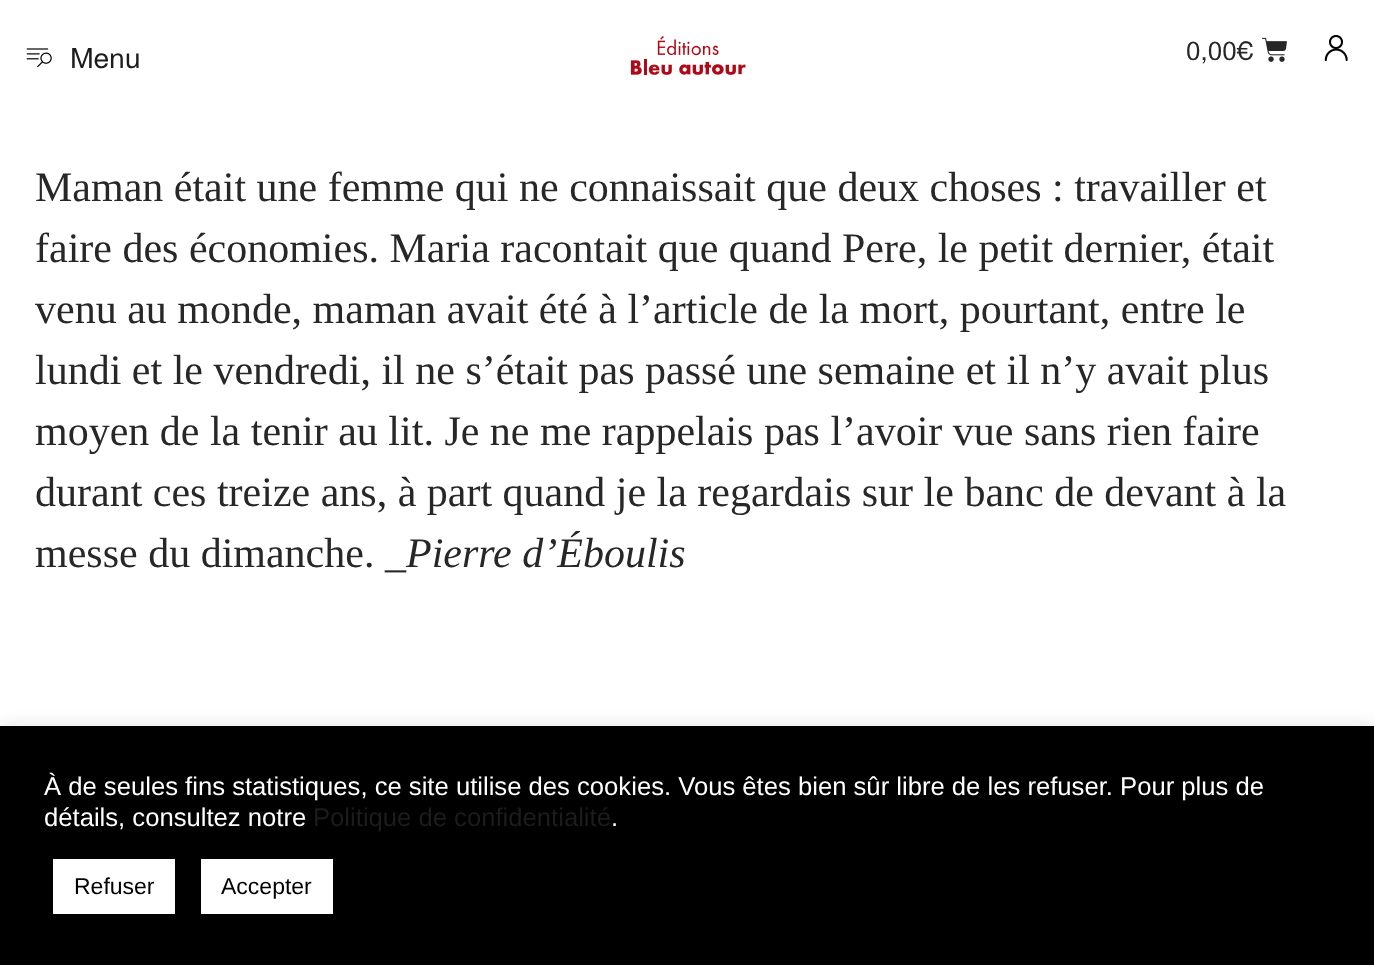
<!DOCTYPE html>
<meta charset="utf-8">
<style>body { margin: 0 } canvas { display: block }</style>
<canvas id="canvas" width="1374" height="965"></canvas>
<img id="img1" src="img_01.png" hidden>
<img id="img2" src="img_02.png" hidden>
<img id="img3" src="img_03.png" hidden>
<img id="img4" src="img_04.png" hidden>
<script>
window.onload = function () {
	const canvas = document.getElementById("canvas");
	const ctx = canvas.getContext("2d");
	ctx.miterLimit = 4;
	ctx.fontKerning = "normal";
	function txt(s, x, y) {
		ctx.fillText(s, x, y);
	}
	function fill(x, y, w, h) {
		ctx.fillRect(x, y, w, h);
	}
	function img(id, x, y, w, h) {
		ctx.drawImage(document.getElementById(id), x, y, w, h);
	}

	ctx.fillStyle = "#FFFFFF";
	fill(0, 0, 1374, 965);
	img("img1", 26, 48, 26, 20);
	img("img2", 630, 36, 116, 39);
	img("img3", 1262, 37, 25, 25);
	img("img4", 1324, 35, 24, 26);
	ctx.fillStyle = "rgba(172, 171, 171, 0.3)";
	ctx.filter = "blur(9px)";
	ctx.beginPath();
	ctx.rect(0, 725, 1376, 239);
	ctx.fill();
	ctx.filter = "none";
	ctx.fillStyle = "#000000";
	fill(0, 726, 1374, 239);
	ctx.fillStyle = "#FFFFFF";
	fill(53, 859, 122, 55);
	fill(201, 859, 132, 55);
	ctx.font = "28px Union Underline";
	ctx.fillStyle = "#1C1C1C";
	txt("Menu", 70, 68);
	ctx.font = "26px Union Underline";
	ctx.fillStyle = "#272727";
	txt("0,00€", 1186, 60);
	ctx.font = "42px Liberation Serif";
	txt("Maman était une femme qui ne connaissait que deux choses : travailler et", 35, 201);
	txt("faire des économies. Maria racontait que quand Pere, le petit dernier, était", 35, 262);
	txt("venu au monde, maman avait été à l’article de la mort, pourtant, entre le", 35, 323);
	txt("lundi et le vendredi, il ne s’était pas passé une semaine et il n’y avait plus", 35, 384);
	txt("moyen de la tenir au lit. Je ne me rappelais pas l’avoir vue sans rien faire", 35, 445);
	txt("durant ces treize ans, à part quand je la regardais sur le banc de devant à la", 35, 506);
	txt("messe du dimanche.", 35, 567);
	ctx.font = "italic 42px Liberation Serif";
	txt("_Pierre d’Éboulis", 385, 567);
	ctx.font = "25.65px Liberation Sans";
	ctx.fillStyle = "#FFFFFF";
	txt("À de seules fins statistiques, ce site utilise des cookies. Vous êtes bien sûr libre de les refuser. Pour plus de", 44, 795);
	txt("détails, consultez notre", 44, 826);
	ctx.fillStyle = "#1C1C1C";
	txt("Politique de confidentialité", 313, 826);
	ctx.fillStyle = "#FFFFFF";
	txt(".", 611, 826);
	ctx.font = "23px Liberation Sans";
	ctx.fillStyle = "#000000";
	txt("Refuser", 74, 894);
	txt("Accepter", 221, 894);
};
</script>
